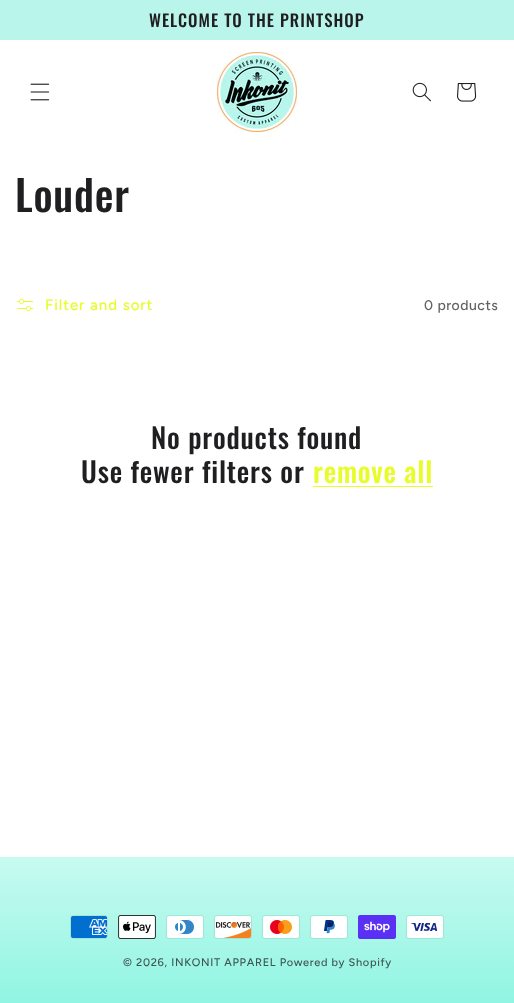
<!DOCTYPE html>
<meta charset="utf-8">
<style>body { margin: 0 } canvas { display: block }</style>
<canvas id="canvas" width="514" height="1003"></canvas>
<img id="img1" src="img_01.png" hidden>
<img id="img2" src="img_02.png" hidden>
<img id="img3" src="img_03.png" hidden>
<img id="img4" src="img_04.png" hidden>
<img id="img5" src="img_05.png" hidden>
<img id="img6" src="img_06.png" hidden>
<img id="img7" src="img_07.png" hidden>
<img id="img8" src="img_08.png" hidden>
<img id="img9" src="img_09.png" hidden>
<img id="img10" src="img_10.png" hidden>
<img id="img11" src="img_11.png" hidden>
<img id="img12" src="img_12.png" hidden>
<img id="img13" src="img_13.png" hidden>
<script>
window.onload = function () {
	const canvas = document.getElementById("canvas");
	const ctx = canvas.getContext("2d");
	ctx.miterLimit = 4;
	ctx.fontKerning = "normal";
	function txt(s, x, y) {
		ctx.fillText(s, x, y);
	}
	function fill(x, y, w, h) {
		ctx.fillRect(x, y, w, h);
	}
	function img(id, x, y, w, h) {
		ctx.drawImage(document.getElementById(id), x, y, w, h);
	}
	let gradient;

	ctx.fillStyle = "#FFFFFF";
	fill(0, 0, 514, 1003);
	gradient = ctx.createLinearGradient(275, -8, 239, 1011);
	gradient.addColorStop(0.13, "#B9F5EB");
	gradient.addColorStop(0.52, "#FFFFFF");
	gradient.addColorStop(0.88, "#FFFFFF");
	ctx.fillStyle = gradient;
	fill(0, 0, 514, 40);
	img("img1", 30, 83, 20, 18);
	img("img2", 217, 52, 80, 80);
	img("img3", 412, 82, 19, 20);
	img("img4", 457, 83, 20, 19);
	img("img5", 17, 299, 16, 12);
	ctx.fillStyle = "#E7FC28";
	fill(313, 486, 120, 1);
	gradient = ctx.createLinearGradient(257, 0, 257, 1003);
	gradient.addColorStop(0, "#FFFFFF");
	gradient.addColorStop(0.71, "#FFFFFF");
	gradient.addColorStop(1, "#90F5E2");
	ctx.fillStyle = gradient;
	fill(0, 857, 514, 146);
	img("img6", 70, 915, 38, 24);
	img("img7", 118, 915, 38, 24);
	img("img8", 166, 915, 38, 24);
	img("img9", 214, 915, 38, 24);
	img("img10", 262, 915, 38, 24);
	img("img11", 310, 915, 38, 24);
	img("img12", 358, 915, 38, 24);
	img("img13", 406, 915, 38, 24);
	ctx.letterSpacing = "1px";
	ctx.font = "500 16.75px Oswald";
	ctx.fillStyle = "#1F1F21";
	txt("WELCOME TO THE PRINTSHOP", 149, 27);
	ctx.letterSpacing = "0.8px";
	ctx.font = "500 42px Oswald";
	txt("Louder", 15, 212);
	ctx.letterSpacing = "1px";
	ctx.font = "500 15px Figtree";
	ctx.fillStyle = "#E7FC28";
	txt("Filter and sort", 45, 310);
	ctx.letterSpacing = "0.5px";
	ctx.font = "500 14px Figtree";
	ctx.fillStyle = "#626264";
	txt("0 products", 424, 310);
	ctx.letterSpacing = "0.8px";
	ctx.font = "500 28px Oswald";
	ctx.fillStyle = "#1F1F21";
	txt("No products found", 151, 449);
	txt("Use fewer filters or", 81, 483);
	ctx.fillStyle = "#E7FC28";
	txt("remove all", 313, 483);
	ctx.letterSpacing = "0.7px";
	ctx.font = "500 11px Figtree";
	ctx.fillStyle = "#3F5552";
	txt("© 2026, INKONIT APPAREL Powered by Shopify", 123, 966);
};
</script>
